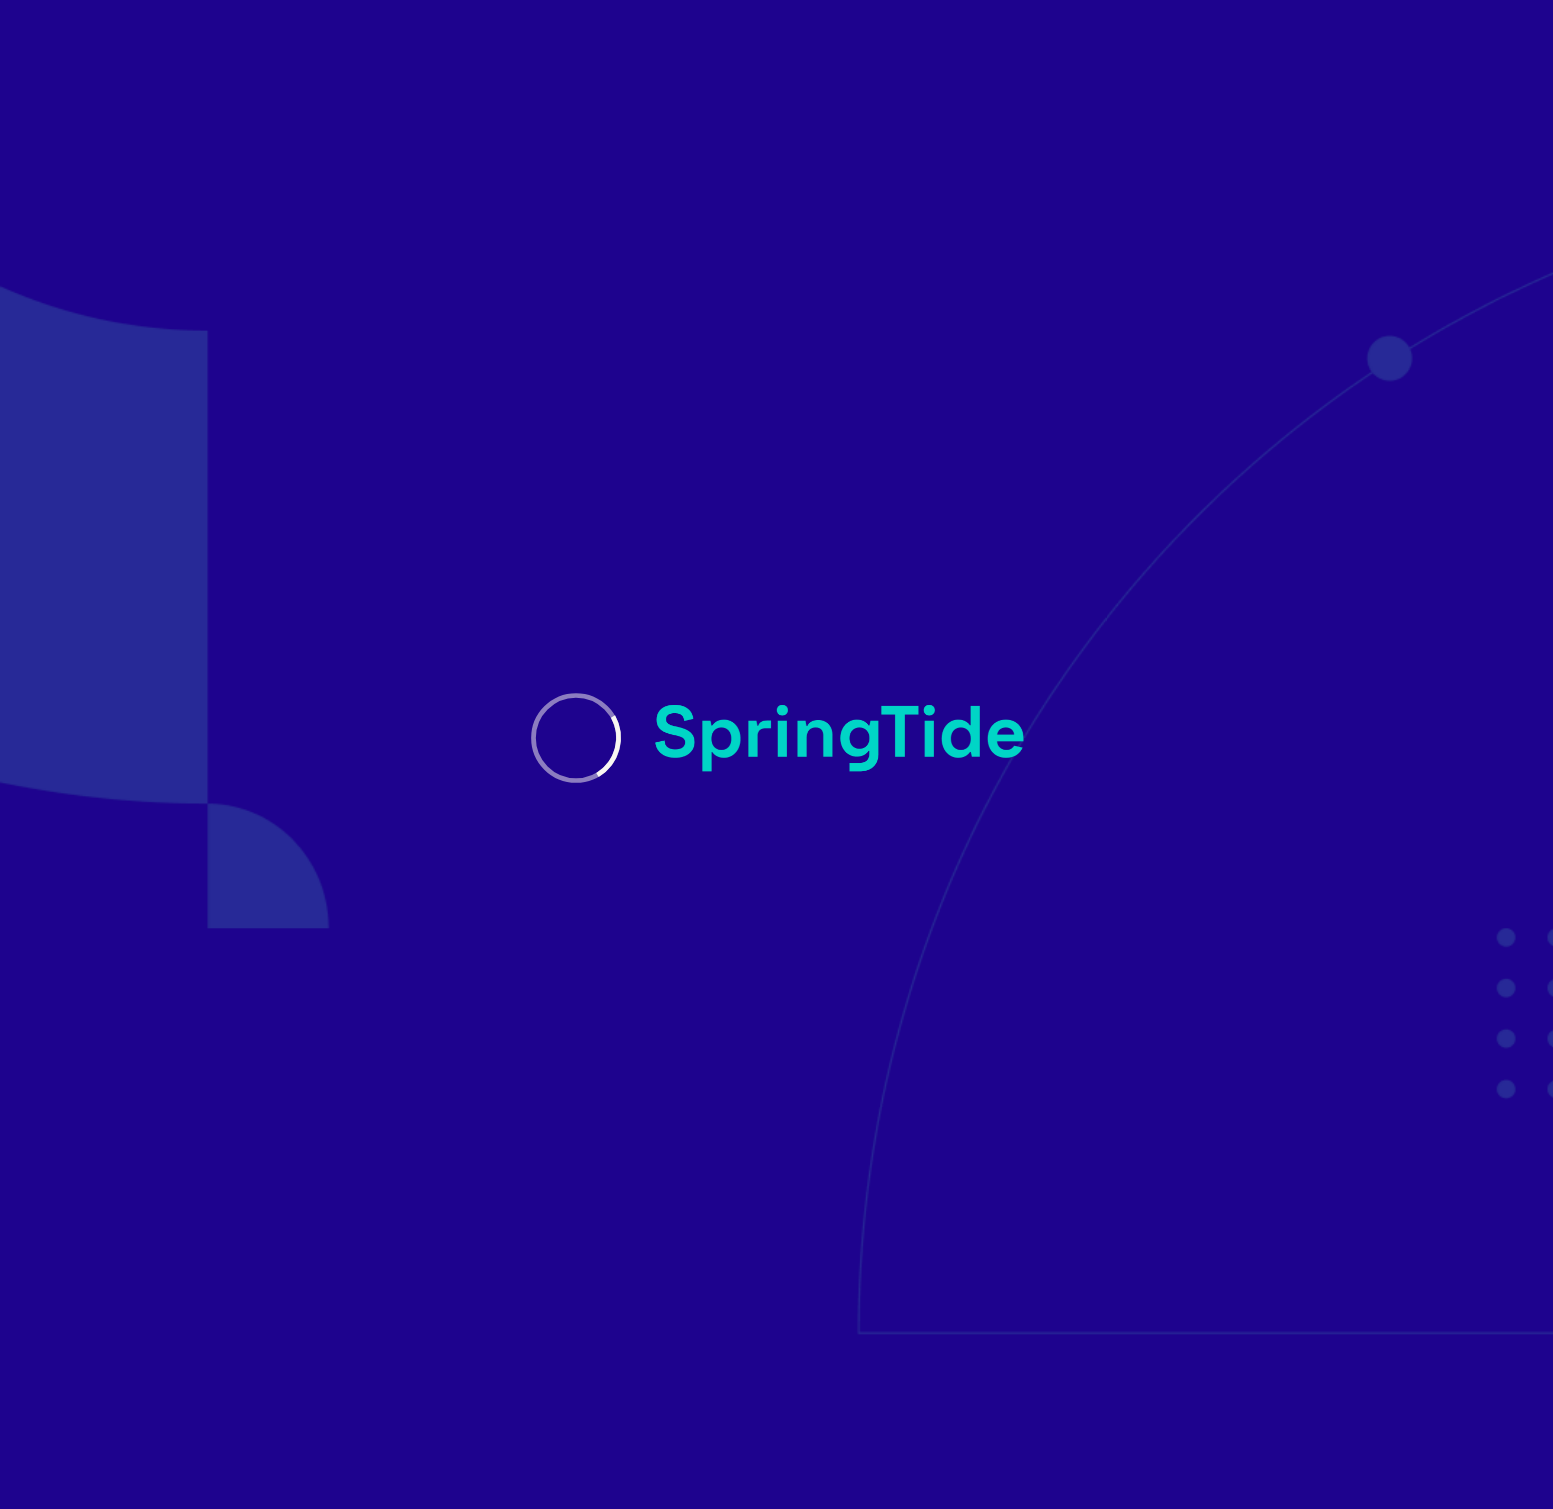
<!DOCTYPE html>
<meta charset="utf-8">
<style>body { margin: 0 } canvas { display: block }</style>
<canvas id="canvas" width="1553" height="1509"></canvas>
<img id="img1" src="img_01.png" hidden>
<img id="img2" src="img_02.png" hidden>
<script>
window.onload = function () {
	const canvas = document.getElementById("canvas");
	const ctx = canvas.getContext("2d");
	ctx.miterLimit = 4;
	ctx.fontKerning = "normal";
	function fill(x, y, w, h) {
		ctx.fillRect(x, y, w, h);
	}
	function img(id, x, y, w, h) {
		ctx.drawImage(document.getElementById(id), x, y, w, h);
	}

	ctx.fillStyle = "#1E038E";
	fill(0, 0, 1553, 1509);
	img("img1", 0, 272, 1553, 1063);
	ctx.beginPath();
	ctx.arc(576, 738, 42.5, 0, Math.PI * 2);
	ctx.strokeStyle = "#8C7DC0";
	ctx.lineWidth = 4.7;
	ctx.stroke();
	ctx.beginPath();
	ctx.moveTo(597.5, 775);
	ctx.bezierCurveTo(617.5, 763, 624.5, 737, 613, 716.5);
	ctx.strokeStyle = "#F9F7F2";
	ctx.stroke();
	img("img2", 655, 705, 369, 67);
};
</script>
